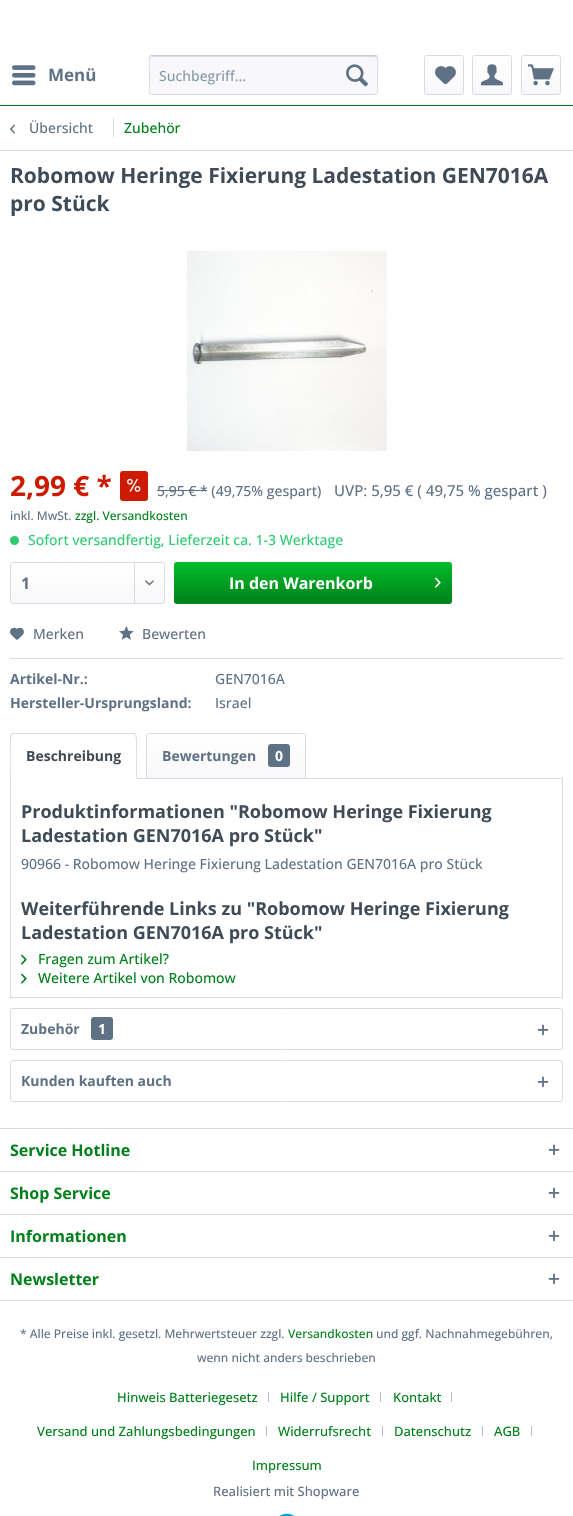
<!DOCTYPE html>
<meta charset="utf-8">
<style>body { margin: 0 } canvas { display: block }</style>
<canvas id="canvas" width="573" height="1516"></canvas>
<img id="img1" src="img_01.png" hidden>
<img id="img2" src="img_02.png" hidden>
<img id="img3" src="img_03.png" hidden>
<img id="img4" src="img_04.png" hidden>
<img id="img5" src="img_05.png" hidden>
<img id="img6" src="img_06.png" hidden>
<img id="img7" src="img_07.png" hidden>
<img id="img8" src="img_08.png" hidden>
<img id="img9" src="img_09.png" hidden>
<img id="img10" src="img_10.png" hidden>
<img id="img11" src="img_11.png" hidden>
<img id="img12" src="img_12.png" hidden>
<img id="img13" src="img_13.png" hidden>
<img id="img14" src="img_14.png" hidden>
<img id="img15" src="img_15.png" hidden>
<script>
window.onload = function () {
	const canvas = document.getElementById("canvas");
	const ctx = canvas.getContext("2d");
	ctx.miterLimit = 4;
	ctx.fontKerning = "normal";
	function txt(s, x, y) {
		ctx.fillText(s, x, y);
	}
	function fill(x, y, w, h) {
		ctx.fillRect(x, y, w, h);
	}
	function round(x, y, w, h, r) {
		ctx.beginPath();
		ctx.roundRect(x, y, w, h, r);
		ctx.fill();
	}
	function img(id, x, y, w, h) {
		ctx.drawImage(document.getElementById(id), x, y, w, h);
	}
	let gradient;

	ctx.fillStyle = "#FFFFFF";
	fill(0, 0, 573, 1516);
	ctx.fillStyle = "#00801B";
	fill(0, 105, 573, 1);
	img("img1", 12, 65, 24, 21);
	ctx.fillStyle = "#F8F8FA";
	round(149, 55, 229, 40, 3);
	ctx.fillStyle = "#DADAE5";
	ctx.beginPath();
	ctx.moveTo(152, 57);
	ctx.lineTo(375, 57);
	ctx.bezierCurveTo(376, 57, 377, 58, 377, 59);
	ctx.bezierCurveTo(377, 58, 377, 56, 375, 56);
	ctx.lineTo(152, 56);
	ctx.lineTo(151, 57);
	ctx.lineTo(150, 59);
	ctx.bezierCurveTo(150, 58, 151, 57, 152, 57);
	ctx.closePath();
	ctx.fill();
	ctx.beginPath();
	ctx.moveTo(150, 56);
	ctx.lineTo(152, 55.5);
	ctx.lineTo(375, 55.5);
	ctx.lineTo(377, 56);
	ctx.strokeStyle = "#CBCBDB";
	ctx.stroke();
	ctx.beginPath();
	ctx.moveTo(377, 56);
	ctx.bezierCurveTo(378.5, 58, 377.5, 72, 377.5, 75);
	ctx.lineTo(377.5, 86.5);
	ctx.bezierCurveTo(377.5, 88, 379, 94.5, 375, 94.5);
	ctx.lineTo(152, 94.5);
	ctx.bezierCurveTo(148, 94.5, 149.5, 88, 149.5, 86.5);
	ctx.lineTo(149.5, 75);
	ctx.bezierCurveTo(149.5, 72, 148.5, 58, 150, 56);
	ctx.strokeStyle = "#DADAE5";
	ctx.stroke();
	img("img2", 346, 64, 22, 23);
	gradient = ctx.createLinearGradient(444, 56, 444, 94);
	gradient.addColorStop(0, "#FFFFFF");
	gradient.addColorStop(1, "#F8F8FA");
	ctx.fillStyle = gradient;
	round(425, 56, 38, 38, 2);
	ctx.beginPath();
	ctx.roundRect(424.5, 55.5, 39, 39, 2.5);
	ctx.stroke();
	img("img3", 435, 66, 21, 19);
	gradient = ctx.createLinearGradient(492, 56, 492, 94);
	gradient.addColorStop(0, "#FFFFFF");
	gradient.addColorStop(1, "#F8F8FA");
	ctx.fillStyle = gradient;
	round(473, 56, 38, 38, 2);
	ctx.beginPath();
	ctx.roundRect(472.5, 55.5, 39, 39, 2.5);
	ctx.stroke();
	img("img4", 481, 64, 22, 22);
	gradient = ctx.createLinearGradient(541, 56, 541, 94);
	gradient.addColorStop(0, "#FFFFFF");
	gradient.addColorStop(1, "#F8F8FA");
	ctx.fillStyle = gradient;
	round(522, 56, 38, 38, 2);
	ctx.beginPath();
	ctx.roundRect(521.5, 55.5, 39, 39, 2.5);
	ctx.stroke();
	img("img5", 528, 64, 26, 22);
	ctx.fillStyle = "#DADAE5";
	fill(0, 150, 573, 1);
	img("img6", 10, 124, 5, 10);
	fill(113, 118, 1, 19);
	img("img7", 186, 251, 201, 200);
	ctx.fillStyle = "#CC1B00";
	round(120, 471, 28, 30, 3);
	img("img8", 127, 478, 14, 14);
	ctx.fillStyle = "#5F7285";
	fill(157, 490, 50, 1);
	ctx.fillStyle = "#2ECC71";
	ctx.beginPath();
	ctx.arc(14.5, 540.5, 4.5, 0, Math.PI * 2);
	ctx.fill();
	gradient = ctx.createLinearGradient(88, 563, 88, 603);
	gradient.addColorStop(0, "#FFFFFF");
	gradient.addColorStop(1, "#F8F8FA");
	ctx.fillStyle = gradient;
	round(11, 563, 153, 40, 2);
	ctx.beginPath();
	ctx.roundRect(10.5, 562.5, 154, 41, 2.5);
	ctx.stroke();
	ctx.fillStyle = "#DADAE5";
	fill(134, 563, 1, 40);
	img("img9", 145, 580, 9, 6);
	gradient = ctx.createLinearGradient(313, 562, 313, 604);
	gradient.addColorStop(0, "#00BD28");
	gradient.addColorStop(1, "#00801B");
	ctx.fillStyle = gradient;
	round(174, 562, 278, 42, 3);
	img("img10", 435, 577, 6, 11);
	ctx.fillStyle = "#DADAE5";
	fill(10, 658, 553, 1);
	img("img11", 10, 627, 14, 13);
	img("img12", 119, 626, 15, 14);
	ctx.strokeRect(10.5, 778.5, 552, 219);
	ctx.fillStyle = "#FFFFFF";
	ctx.beginPath();
	ctx.roundRect(10, 733, 127, 46, [3, 3, 0, 0]);
	ctx.fill();
	ctx.fillStyle = "#DADAE5";
	ctx.beginPath();
	ctx.moveTo(13, 733);
	ctx.lineTo(11, 734);
	ctx.lineTo(12, 735);
	ctx.lineTo(13, 734);
	ctx.lineTo(134, 734);
	ctx.lineTo(135, 735);
	ctx.lineTo(136, 734);
	ctx.lineTo(134, 733);
	ctx.closePath();
	ctx.fill();
	ctx.beginPath();
	ctx.moveTo(137, 779);
	ctx.bezierCurveTo(137, 774, 138, 736, 136, 734);
	ctx.lineTo(135, 735);
	ctx.bezierCurveTo(137, 736, 136, 773, 136, 778);
	ctx.closePath();
	ctx.fill();
	ctx.fillStyle = "#FFFFFF";
	ctx.beginPath();
	ctx.moveTo(137, 779);
	ctx.lineTo(136, 778);
	ctx.lineTo(11, 778);
	ctx.lineTo(10, 779);
	ctx.closePath();
	ctx.fill();
	ctx.fillStyle = "#DADAE5";
	ctx.beginPath();
	ctx.moveTo(10, 779);
	ctx.lineTo(11, 778);
	ctx.bezierCurveTo(11, 773, 10, 736, 12, 735);
	ctx.lineTo(11, 734);
	ctx.lineTo(10, 736);
	ctx.closePath();
	ctx.fill();
	gradient = ctx.createLinearGradient(226, 734, 226, 778);
	gradient.addColorStop(0, "#FFFFFF");
	gradient.addColorStop(1, "#F8F8FA");
	ctx.fillStyle = gradient;
	ctx.beginPath();
	ctx.roundRect(147, 734, 158, 44, [2, 2, 0, 0]);
	ctx.fill();
	ctx.beginPath();
	ctx.roundRect(146.5, 733.5, 159, 45, [2.5, 2.5, 0, 0]);
	ctx.stroke();
	ctx.fillStyle = "#5F7285";
	round(268, 744, 22, 23, 3);
	img("img13", 21, 954, 6, 11);
	img("img13", 21, 973, 6, 11);
	ctx.beginPath();
	ctx.roundRect(10.5, 1008.5, 552, 41, 2.5);
	ctx.stroke();
	round(91, 1017, 22, 23, 3);
	img("img14", 537, 1024, 12, 12);
	ctx.beginPath();
	ctx.roundRect(10.5, 1060.5, 552, 41, 2.5);
	ctx.stroke();
	img("img14", 537, 1076, 12, 12);
	ctx.fillStyle = "#DADAE5";
	fill(0, 1128, 573, 1);
	img("img14", 548, 1144, 12, 12);
	fill(0, 1171, 573, 1);
	img("img14", 548, 1187, 12, 12);
	fill(0, 1214, 573, 1);
	img("img14", 548, 1230, 12, 12);
	fill(0, 1257, 573, 1);
	fill(0, 1300, 573, 1);
	img("img14", 548, 1273, 12, 12);
	ctx.fillStyle = "#BCBCD0";
	fill(268, 1392, 1, 10);
	fill(380, 1392, 1, 10);
	fill(451, 1392, 1, 10);
	fill(266, 1426, 1, 10);
	fill(382, 1426, 1, 10);
	fill(482, 1426, 1, 10);
	fill(531, 1426, 1, 10);
	img("img15", 279, 1513, 16, 3);
	ctx.font = "bold 17px Open Sans";
	ctx.fillStyle = "#5F7285";
	txt("Menü", 48, 81);
	ctx.font = "500 14px Open Sans";
	ctx.fillStyle = "#8798A9";
	txt("Suchbegriff...", 159, 81);
	ctx.fillStyle = "#5F7285";
	txt("Übersicht", 29, 133);
	ctx.fillStyle = "#00801B";
	txt("Zubehör", 124, 133);
	ctx.font = "bold 21px Open Sans";
	ctx.fillStyle = "#3F4C58";
	txt("Robomow Heringe Fixierung Ladestation GEN7016A", 10, 183);
	txt("pro Stück", 10, 211);
	ctx.font = "bold 28px Open Sans";
	ctx.fillStyle = "#CC1B00";
	txt("2,99 € *", 10, 496);
	ctx.font = "500 14px Open Sans";
	ctx.fillStyle = "#5F7285";
	txt("5,95 € * (49,75% gespart)", 157, 496);
	ctx.font = "500 15px Open Sans";
	txt("UVP: 5,95 € ( 49,75 % gespart )", 334, 496);
	ctx.font = "500 12px Open Sans";
	txt("inkl. MwSt.", 10, 520);
	ctx.fillStyle = "#00801B";
	txt("zzgl. Versandkosten", 75, 520);
	ctx.font = "500 14px Open Sans";
	ctx.fillStyle = "#2ECC71";
	txt("Sofort versandfertig, Lieferzeit ca. 1-3 Werktage", 28, 545);
	ctx.font = "bold 16px Open Sans";
	ctx.fillStyle = "#5F7285";
	txt("1", 21, 589);
	ctx.fillStyle = "#FFFFFF";
	txt("In den Warenkorb", 229, 589);
	ctx.font = "500 14px Open Sans";
	ctx.fillStyle = "#5F7285";
	txt("Merken", 33, 639);
	txt("Bewerten", 142, 639);
	ctx.font = "bold 14px Open Sans";
	txt("Artikel-Nr.:", 10, 684);
	ctx.font = "500 14px Open Sans";
	txt("GEN7016A", 215, 684);
	ctx.font = "bold 14px Open Sans";
	txt("Hersteller-Ursprungsland:", 10, 708);
	ctx.font = "500 14px Open Sans";
	txt("Israel", 215, 708);
	ctx.font = "bold 14px Open Sans";
	ctx.fillStyle = "#3F4C58";
	txt("Beschreibung", 26, 761);
	ctx.fillStyle = "#5F7285";
	txt("Bewertungen", 162, 761);
	ctx.fillStyle = "#FFFFFF";
	txt("0", 275, 761);
	ctx.font = "bold 18px Open Sans";
	ctx.fillStyle = "#3F4C58";
	txt("Produktinformationen \"Robomow Heringe Fixierung", 21, 818);
	txt("Ladestation GEN7016A pro Stück\"", 21, 842);
	ctx.font = "500 14px Open Sans";
	ctx.fillStyle = "#5F7285";
	txt("90966 - Robomow Heringe Fixierung Ladestation GEN7016A pro Stück", 21, 869);
	ctx.font = "bold 18px Open Sans";
	ctx.fillStyle = "#3F4C58";
	txt("Weiterführende Links zu \"Robomow Heringe Fixierung", 21, 915);
	txt("Ladestation GEN7016A pro Stück\"", 21, 939);
	ctx.font = "500 14px Open Sans";
	ctx.fillStyle = "#00801B";
	txt("Fragen zum Artikel?", 38, 964);
	txt("Weitere Artikel von Robomow", 38, 983);
	ctx.font = "bold 14px Open Sans";
	ctx.fillStyle = "#5F7285";
	txt("Zubehör", 21, 1034);
	ctx.fillStyle = "#FFFFFF";
	txt("1", 98, 1034);
	ctx.fillStyle = "#5F7285";
	txt("Kunden kauften auch", 21, 1086);
	ctx.font = "bold 16px Open Sans";
	ctx.fillStyle = "#00801B";
	txt("Service Hotline", 10, 1156);
	txt("Shop Service", 10, 1199);
	txt("Informationen", 10, 1242);
	txt("Newsletter", 10, 1285);
	ctx.font = "500 12px Open Sans";
	ctx.fillStyle = "#5F7285";
	txt("* Alle Preise inkl. gesetzl. Mehrwertsteuer zzgl.", 20, 1338);
	ctx.fillStyle = "#00801B";
	txt("Versandkosten", 288, 1338);
	ctx.fillStyle = "#5F7285";
	txt("und ggf. Nachnahmegebühren,", 376, 1338);
	txt("wenn nicht anders beschrieben", 197, 1362);
	ctx.font = "500 13px Open Sans";
	ctx.fillStyle = "#00801B";
	txt("Hinweis Batteriegesetz", 117, 1402);
	txt("Hilfe / Support", 280, 1402);
	txt("Kontakt", 393, 1402);
	txt("Versand und Zahlungsbedingungen", 37, 1436);
	txt("Widerrufsrecht", 278, 1436);
	txt("Datenschutz", 394, 1436);
	txt("AGB", 494, 1436);
	txt("Impressum", 252, 1470);
	ctx.fillStyle = "#5F7285";
	txt("Realisiert mit Shopware", 213, 1496);
};
</script>
